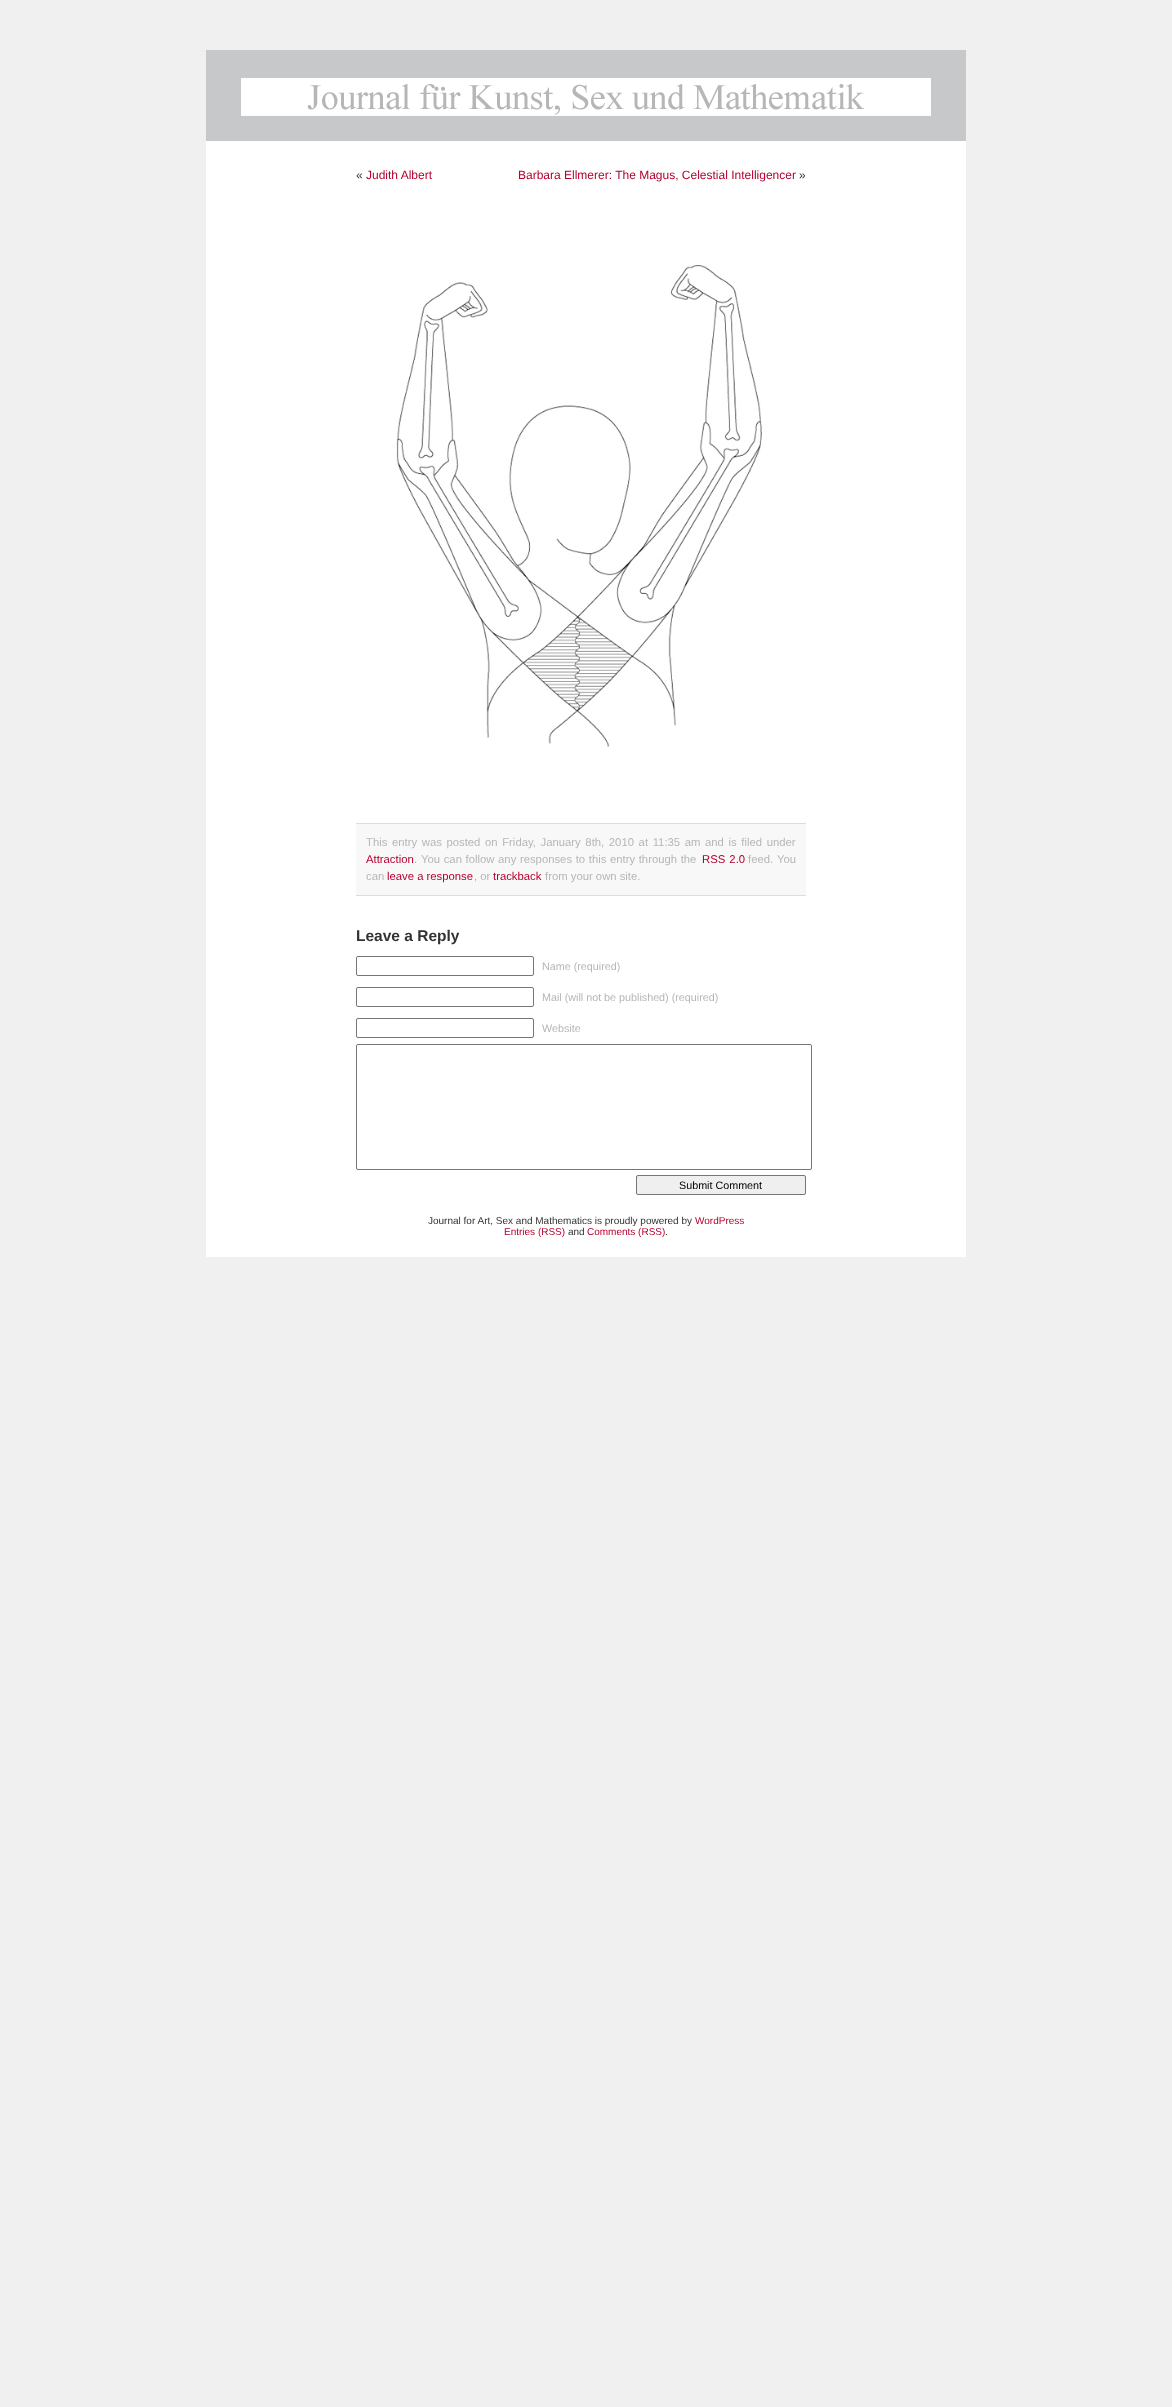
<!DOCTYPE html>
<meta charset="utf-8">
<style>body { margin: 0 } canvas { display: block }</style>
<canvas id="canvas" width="1172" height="2407"></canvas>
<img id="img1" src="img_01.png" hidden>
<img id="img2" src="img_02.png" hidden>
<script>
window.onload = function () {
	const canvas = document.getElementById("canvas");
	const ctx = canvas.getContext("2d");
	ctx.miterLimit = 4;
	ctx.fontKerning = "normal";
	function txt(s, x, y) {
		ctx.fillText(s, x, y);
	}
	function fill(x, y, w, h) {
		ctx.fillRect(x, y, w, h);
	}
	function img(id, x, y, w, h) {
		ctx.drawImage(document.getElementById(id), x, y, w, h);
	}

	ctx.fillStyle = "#F0F0F0";
	fill(0, 0, 1172, 2407);
	ctx.fillStyle = "#FFFFFF";
	fill(206, 141, 760, 1116);
	ctx.fillStyle = "#C7C8CA";
	fill(206, 50, 760, 91);
	img("img1", 241, 78, 690, 38);
	img("img2", 396, 265, 366, 482);
	ctx.fillStyle = "#F8F8F8";
	fill(356, 824, 450, 71);
	ctx.fillStyle = "#DDDDDD";
	fill(356, 823, 450, 1);
	fill(356, 895, 450, 1);
	ctx.beginPath();
	ctx.roundRect(356.5, 956.5, 177, 19, 1.5);
	ctx.strokeStyle = "#767676";
	ctx.stroke();
	ctx.beginPath();
	ctx.roundRect(356.5, 987.5, 177, 19, 1.5);
	ctx.stroke();
	ctx.beginPath();
	ctx.roundRect(356.5, 1018.5, 177, 19, 1.5);
	ctx.stroke();
	ctx.beginPath();
	ctx.roundRect(356.5, 1044.5, 455, 125, 1.5);
	ctx.stroke();
	ctx.fillStyle = "#EFEFEF";
	ctx.beginPath();
	ctx.roundRect(636.5, 1175.5, 169, 19, 1.5);
	ctx.fill();
	ctx.stroke();
	ctx.font = "12px Liberation Sans";
	ctx.fillStyle = "#333333";
	txt("«", 356, 179);
	ctx.fillStyle = "#B4012D";
	txt("Judith Albert", 366, 179);
	txt("Barbara Ellmerer: The Magus, Celestial Intelligencer", 518, 179);
	ctx.fillStyle = "#333333";
	txt("»", 799, 179);
	ctx.wordSpacing = "1.5px";
	ctx.font = "11.3px Liberation Sans";
	ctx.fillStyle = "#B6B6B6";
	txt("This entry was posted", 366, 846);
	txt("on Friday, January 8th, 2010 at 11:35 am", 485, 846);
	txt("and is filed under", 705, 846);
	ctx.wordSpacing = "0px";
	ctx.fillStyle = "#B4012D";
	txt("Attraction", 366, 863);
	ctx.fillStyle = "#B6B6B6";
	txt(".", 414, 863);
	ctx.wordSpacing = "0.5px";
	txt("You can follow any responses to this entry through the", 421, 863);
	ctx.wordSpacing = "1px";
	ctx.fillStyle = "#B4012D";
	txt("RSS 2.0", 702, 863);
	ctx.wordSpacing = "0px";
	ctx.fillStyle = "#B6B6B6";
	txt("feed.", 748, 863);
	txt("You", 777, 863);
	txt("can", 366, 880);
	ctx.fillStyle = "#B4012D";
	txt("leave a response", 387, 880);
	ctx.fillStyle = "#B6B6B6";
	txt(", or", 474, 880);
	ctx.fillStyle = "#B4012D";
	txt("trackback", 493, 880);
	ctx.fillStyle = "#B6B6B6";
	txt("from your own site.", 545, 880);
	ctx.font = "bold 15.5px Liberation Sans";
	ctx.fillStyle = "#333333";
	txt("Leave a Reply", 356, 941);
	ctx.font = "10.75px Liberation Sans";
	ctx.fillStyle = "#B6B6B6";
	txt("Name (required)", 542, 970);
	txt("Mail (will not be published) (required)", 542, 1001);
	txt("Website", 542, 1032);
	ctx.fillStyle = "#000000";
	txt("Submit Comment", 679, 1189);
	ctx.font = "10px Liberation Sans";
	ctx.fillStyle = "#333333";
	txt("Journal for Art, Sex and Mathematics is proudly powered by", 428, 1224);
	ctx.fillStyle = "#B4012D";
	txt("WordPress", 695, 1224);
	txt("Entries (RSS)", 504, 1235);
	ctx.fillStyle = "#333333";
	txt("and", 568, 1235);
	ctx.fillStyle = "#B4012D";
	txt("Comments (RSS)", 587, 1235);
	ctx.fillStyle = "#333333";
	txt(".", 665, 1235);
};
</script>
